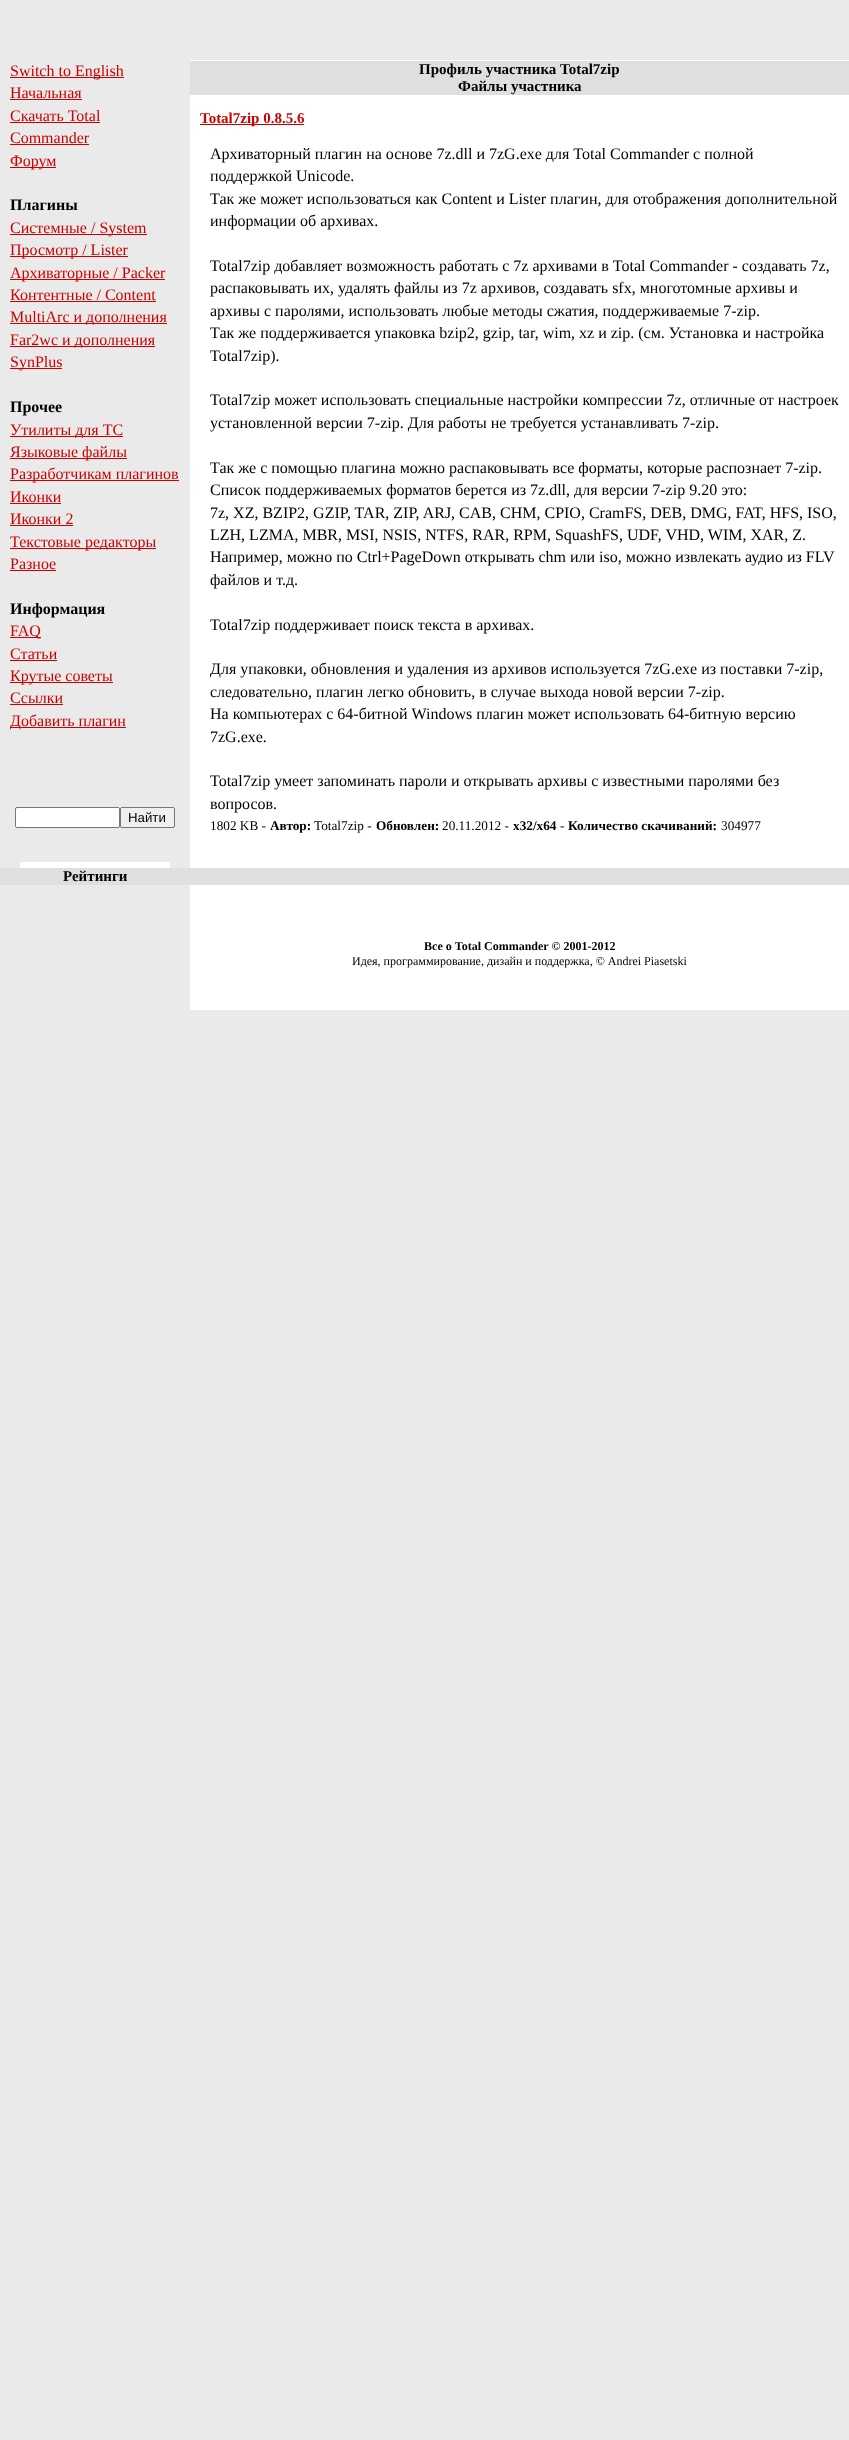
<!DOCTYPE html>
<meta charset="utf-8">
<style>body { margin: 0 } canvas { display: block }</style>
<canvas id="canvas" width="849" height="2440"></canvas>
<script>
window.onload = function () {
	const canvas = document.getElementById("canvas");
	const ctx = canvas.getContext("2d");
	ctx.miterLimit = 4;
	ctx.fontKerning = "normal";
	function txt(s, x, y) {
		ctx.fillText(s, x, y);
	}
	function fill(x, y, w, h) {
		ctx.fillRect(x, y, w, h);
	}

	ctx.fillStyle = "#EAEAEA";
	fill(0, 0, 849, 2440);
	ctx.fillStyle = "#CC0000";
	fill(10, 77, 114, 1);
	fill(10, 99, 72, 1);
	fill(10, 122, 90, 1);
	fill(10, 144, 79, 1);
	fill(10, 167, 46, 1);
	fill(10, 234, 137, 1);
	fill(10, 256, 118, 1);
	fill(10, 279, 155, 1);
	fill(10, 301, 146, 1);
	fill(10, 323, 157, 1);
	fill(10, 346, 145, 1);
	fill(10, 368, 52, 1);
	fill(10, 436, 113, 1);
	fill(10, 458, 117, 1);
	fill(10, 480, 169, 1);
	fill(10, 503, 51, 1);
	fill(10, 525, 63, 1);
	fill(10, 548, 146, 1);
	fill(10, 570, 46, 1);
	fill(10, 637, 31, 1);
	fill(10, 660, 47, 1);
	fill(10, 682, 103, 1);
	fill(10, 704, 53, 1);
	fill(10, 727, 116, 1);
	ctx.fillStyle = "#FFFFFF";
	ctx.beginPath();
	ctx.roundRect(15.5, 807.5, 104, 20, 1.5);
	ctx.fill();
	ctx.strokeStyle = "#767676";
	ctx.stroke();
	ctx.fillStyle = "#EFEFEF";
	ctx.beginPath();
	ctx.roundRect(120.5, 807.5, 54, 20, 1.5);
	ctx.fill();
	ctx.stroke();
	ctx.fillStyle = "#FFFFFF";
	fill(20, 862, 150, 6);
	fill(190, 60, 659, 808);
	ctx.fillStyle = "#DFDFDF";
	fill(190, 61, 659, 34);
	ctx.fillStyle = "#CC0000";
	fill(200, 124, 104, 1);
	ctx.fillStyle = "#DFDFDF";
	fill(0, 868, 849, 17);
	ctx.fillStyle = "#FFFFFF";
	fill(190, 885, 659, 125);
	ctx.font = "16px Liberation Serif";
	ctx.fillStyle = "#CC0000";
	txt("Switch to English", 10, 76);
	txt("Начальная", 10, 98);
	txt("Скачать Total", 10, 121);
	txt("Commander", 10, 143);
	txt("Форум", 10, 166);
	ctx.font = "bold 16px Liberation Serif";
	ctx.fillStyle = "#000000";
	txt("Плагины", 10, 210);
	ctx.font = "16px Liberation Serif";
	ctx.fillStyle = "#CC0000";
	txt("Системные / System", 10, 233);
	txt("Просмотр / Lister", 10, 255);
	txt("Архиваторные / Packer", 10, 278);
	txt("Контентные / Content", 10, 300);
	txt("MultiArc и дополнения", 10, 322);
	txt("Far2wc и дополнения", 10, 345);
	txt("SynPlus", 10, 367);
	ctx.font = "bold 16px Liberation Serif";
	ctx.fillStyle = "#000000";
	txt("Прочее", 10, 412);
	ctx.font = "16px Liberation Serif";
	ctx.fillStyle = "#CC0000";
	txt("Утилиты для TC", 10, 435);
	txt("Языковые файлы", 10, 457);
	txt("Разработчикам плагинов", 10, 479);
	txt("Иконки", 10, 502);
	txt("Иконки 2", 10, 524);
	txt("Текстовые редакторы", 10, 547);
	txt("Разное", 10, 569);
	ctx.font = "bold 16px Liberation Serif";
	ctx.fillStyle = "#000000";
	txt("Информация", 10, 614);
	ctx.font = "16px Liberation Serif";
	ctx.fillStyle = "#CC0000";
	txt("FAQ", 10, 636);
	txt("Статьи", 10, 659);
	txt("Крутые советы", 10, 681);
	txt("Ссылки", 10, 703);
	txt("Добавить плагин", 10, 726);
	ctx.font = "13.25px Liberation Sans";
	ctx.fillStyle = "#000000";
	txt("Найти", 128, 822);
	ctx.font = "bold 15px Liberation Serif";
	txt("Профиль участника Total7zip", 419, 74);
	txt("Файлы участника", 458, 91);
	ctx.fillStyle = "#CC0000";
	txt("Total7zip 0.8.5.6", 200, 123);
	ctx.font = "16px Liberation Serif";
	ctx.fillStyle = "#000000";
	txt("Архиваторный плагин на основе 7z.dll и 7zG.exe для Total Commander с полной", 210, 159);
	txt("поддержкой Unicode.", 210, 181);
	txt("Так же может использоваться как Content и Lister плагин, для отображения дополнительной", 210, 204);
	txt("информации об архивах.", 210, 226);
	txt("Total7zip добавляет возможность работать с 7z архивами в Total Commander - создавать 7z,", 210, 271);
	txt("распаковывать их, удалять файлы из 7z архивов, создавать sfx, многотомные архивы и", 210, 293);
	txt("архивы с паролями, использовать любые методы сжатия, поддерживаемые 7-zip.", 210, 316);
	txt("Так же поддерживается упаковка bzip2, gzip, tar, wim, xz и zip. (см. Установка и настройка", 210, 338);
	txt("Total7zip).", 210, 361);
	txt("Total7zip может использовать специальные настройки компрессии 7z, отличные от настроек", 210, 405);
	txt("установленной версии 7-zip. Для работы не требуется устанавливать 7-zip.", 210, 428);
	txt("Так же с помощью плагина можно распаковывать все форматы, которые распознает 7-zip.", 210, 473);
	txt("Список поддерживаемых форматов берется из 7z.dll, для версии 7-zip 9.20 это:", 210, 495);
	txt("7z, XZ, BZIP2, GZIP, TAR, ZIP, ARJ, CAB, CHM, CPIO, CramFS, DEB, DMG, FAT, HFS, ISO,", 210, 518);
	txt("LZH, LZMA, MBR, MSI, NSIS, NTFS, RAR, RPM, SquashFS, UDF, VHD, WIM, XAR, Z.", 210, 540);
	txt("Например, можно по Ctrl+PageDown открывать chm или iso, можно извлекать аудио из FLV", 210, 562);
	txt("файлов и т.д.", 210, 585);
	txt("Total7zip поддерживает поиск текста в архивах.", 210, 630);
	txt("Для упаковки, обновления и удаления из архивов используется 7zG.exe из поставки 7-zip,", 210, 674);
	txt("следовательно, плагин легко обновить, в случае выхода новой версии 7-zip.", 210, 697);
	txt("На компьютерах с 64-битной Windows плагин может использовать 64-битную версию", 210, 719);
	txt("7zG.exe.", 210, 742);
	txt("Total7zip умеет запоминать пароли и открывать архивы с известными паролями без", 210, 786);
	txt("вопросов.", 210, 809);
	ctx.font = "13.25px Liberation Serif";
	txt("1802 KB -", 210, 830);
	ctx.font = "bold 13.25px Liberation Serif";
	txt("Автор:", 270, 830);
	ctx.font = "13.25px Liberation Serif";
	txt("Total7zip -", 314, 830);
	ctx.font = "bold 13.25px Liberation Serif";
	txt("Обновлен:", 376, 830);
	ctx.font = "13.25px Liberation Serif";
	txt("20.11.2012 -", 442, 830);
	ctx.font = "bold 13.25px Liberation Serif";
	txt("x32/x64", 513, 830);
	ctx.font = "13.25px Liberation Serif";
	txt("-", 560, 830);
	ctx.font = "bold 13.25px Liberation Serif";
	txt("Количество скачиваний:", 568, 830);
	ctx.font = "13.25px Liberation Serif";
	txt("304977", 721, 830);
	ctx.font = "bold 15px Liberation Serif";
	txt("Рейтинги", 63, 881);
	ctx.font = "bold 12px Liberation Serif";
	txt("Все о Total Commander © 2001-2012", 424, 950);
	ctx.font = "12px Liberation Serif";
	txt("Идея, программирование, дизайн и поддержка, © Andrei Piasetski", 352, 965);
};
</script>
